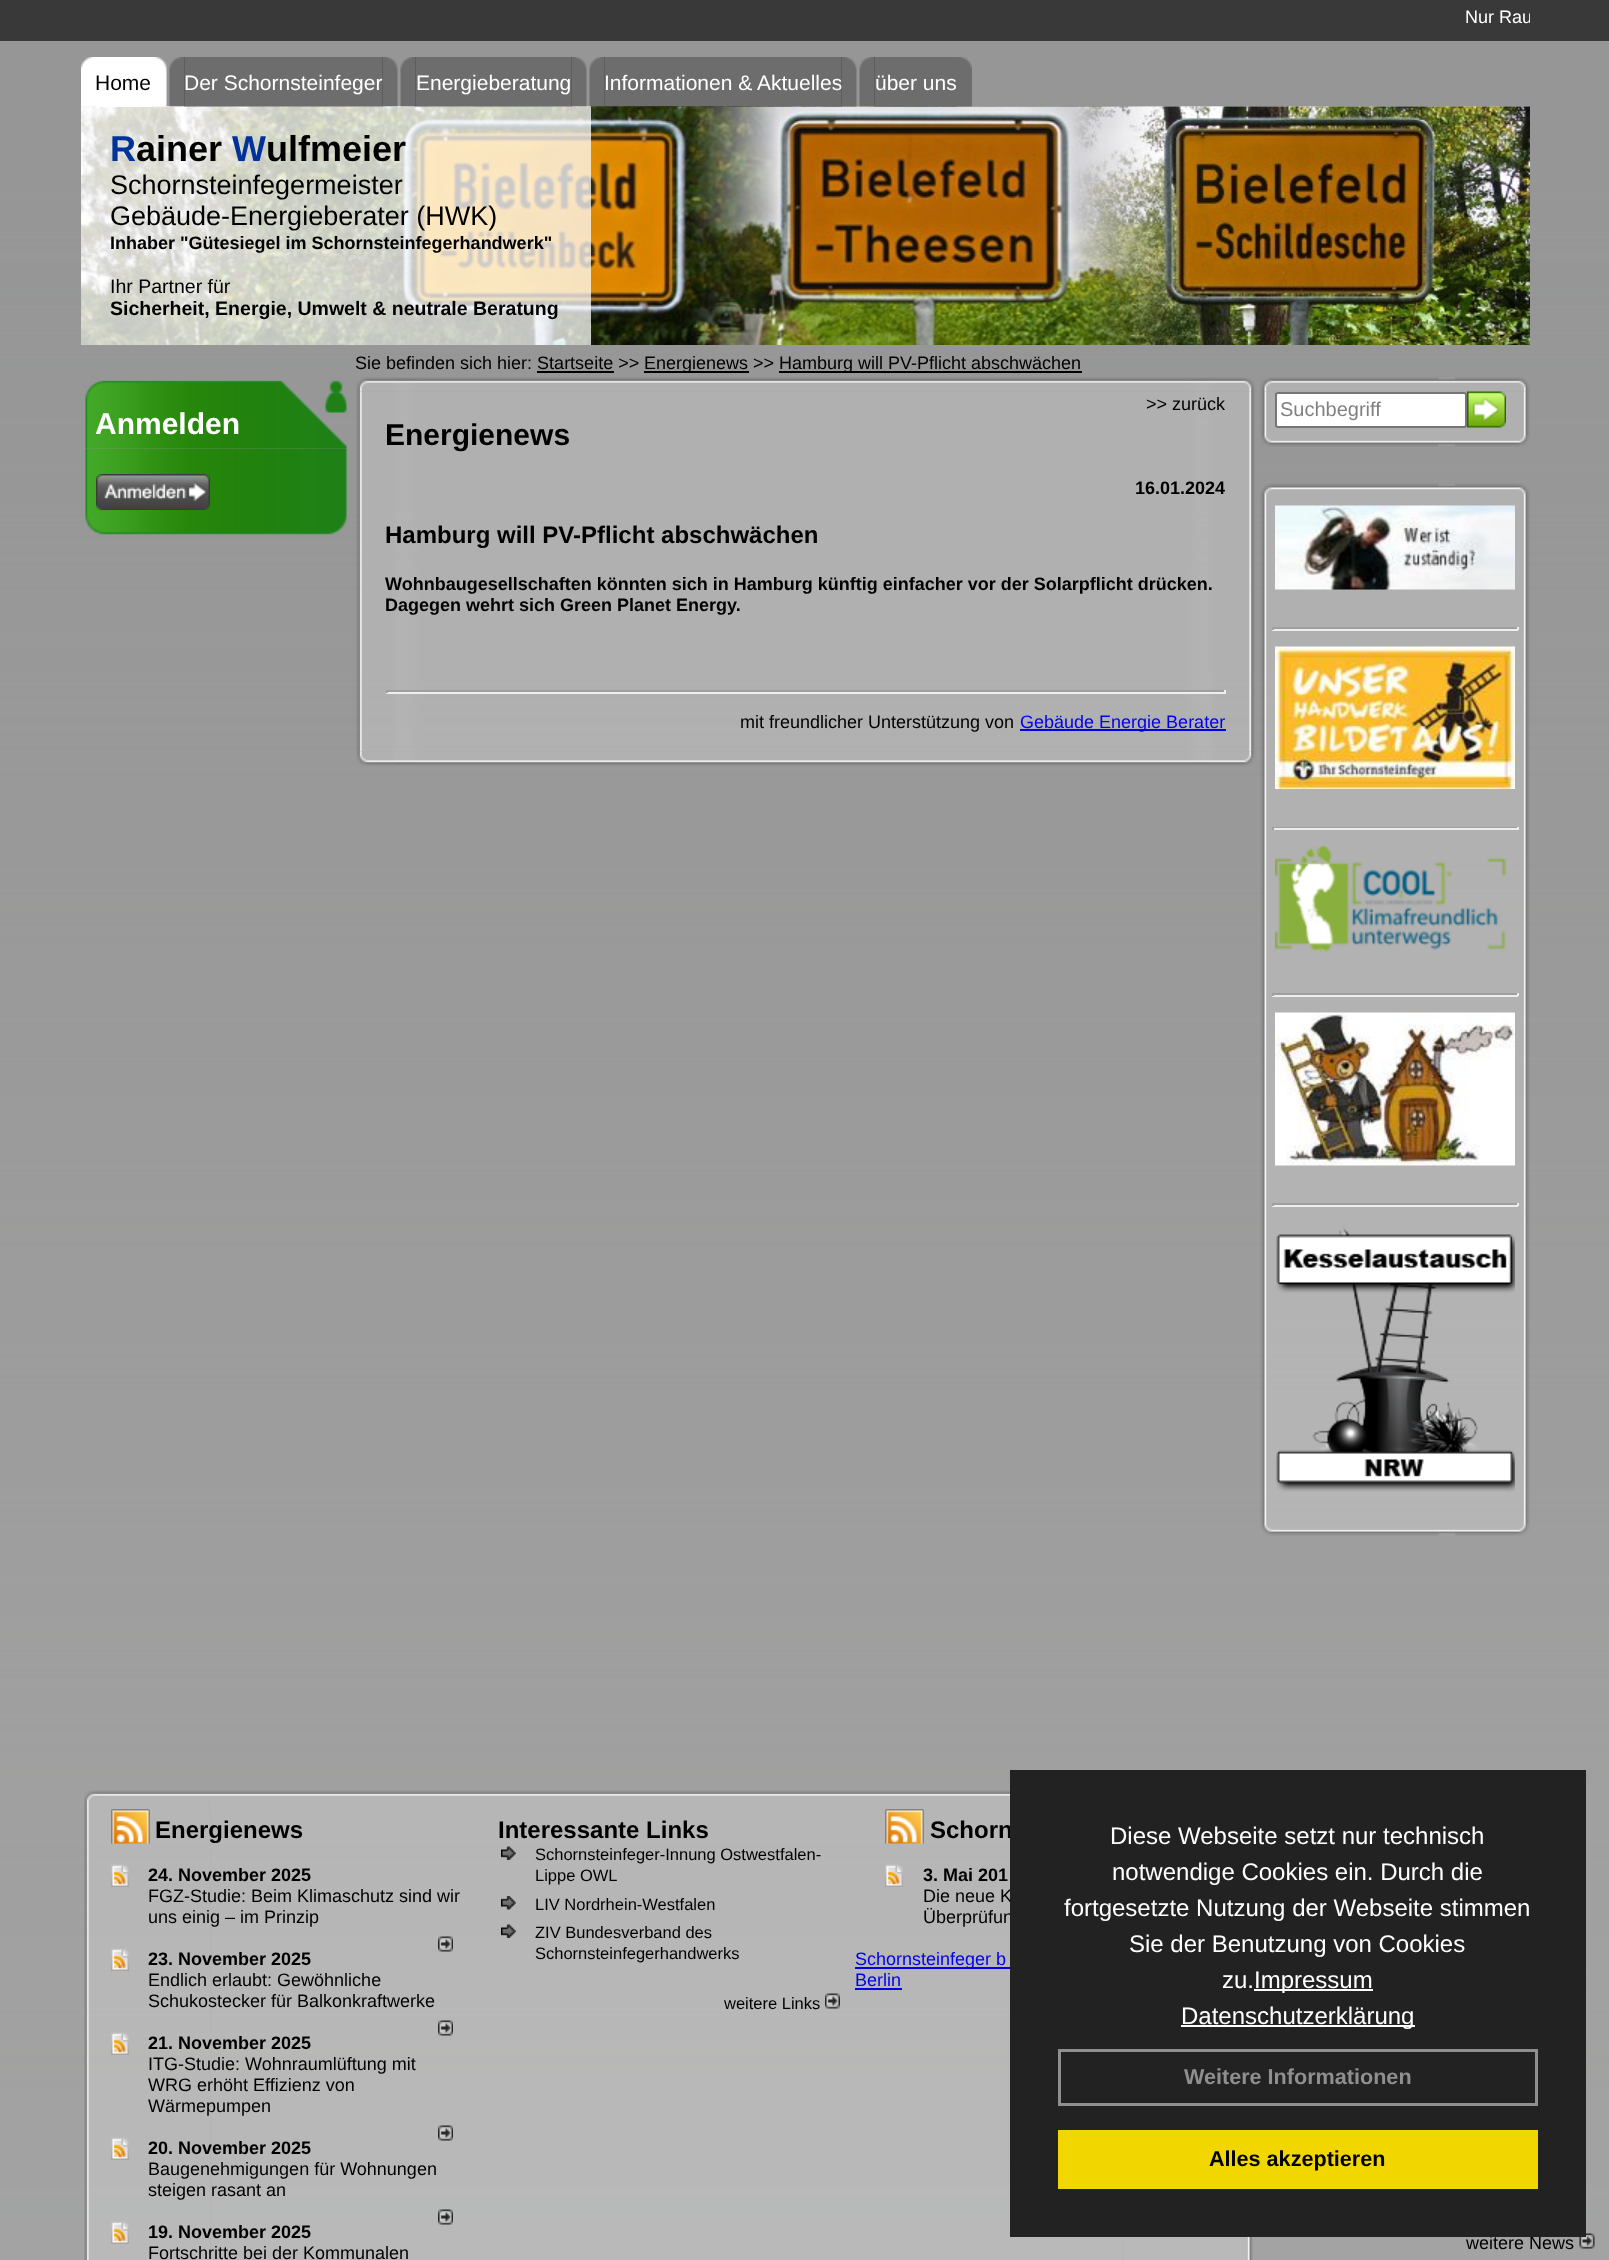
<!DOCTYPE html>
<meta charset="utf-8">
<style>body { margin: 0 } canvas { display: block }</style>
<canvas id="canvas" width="1609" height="2260"></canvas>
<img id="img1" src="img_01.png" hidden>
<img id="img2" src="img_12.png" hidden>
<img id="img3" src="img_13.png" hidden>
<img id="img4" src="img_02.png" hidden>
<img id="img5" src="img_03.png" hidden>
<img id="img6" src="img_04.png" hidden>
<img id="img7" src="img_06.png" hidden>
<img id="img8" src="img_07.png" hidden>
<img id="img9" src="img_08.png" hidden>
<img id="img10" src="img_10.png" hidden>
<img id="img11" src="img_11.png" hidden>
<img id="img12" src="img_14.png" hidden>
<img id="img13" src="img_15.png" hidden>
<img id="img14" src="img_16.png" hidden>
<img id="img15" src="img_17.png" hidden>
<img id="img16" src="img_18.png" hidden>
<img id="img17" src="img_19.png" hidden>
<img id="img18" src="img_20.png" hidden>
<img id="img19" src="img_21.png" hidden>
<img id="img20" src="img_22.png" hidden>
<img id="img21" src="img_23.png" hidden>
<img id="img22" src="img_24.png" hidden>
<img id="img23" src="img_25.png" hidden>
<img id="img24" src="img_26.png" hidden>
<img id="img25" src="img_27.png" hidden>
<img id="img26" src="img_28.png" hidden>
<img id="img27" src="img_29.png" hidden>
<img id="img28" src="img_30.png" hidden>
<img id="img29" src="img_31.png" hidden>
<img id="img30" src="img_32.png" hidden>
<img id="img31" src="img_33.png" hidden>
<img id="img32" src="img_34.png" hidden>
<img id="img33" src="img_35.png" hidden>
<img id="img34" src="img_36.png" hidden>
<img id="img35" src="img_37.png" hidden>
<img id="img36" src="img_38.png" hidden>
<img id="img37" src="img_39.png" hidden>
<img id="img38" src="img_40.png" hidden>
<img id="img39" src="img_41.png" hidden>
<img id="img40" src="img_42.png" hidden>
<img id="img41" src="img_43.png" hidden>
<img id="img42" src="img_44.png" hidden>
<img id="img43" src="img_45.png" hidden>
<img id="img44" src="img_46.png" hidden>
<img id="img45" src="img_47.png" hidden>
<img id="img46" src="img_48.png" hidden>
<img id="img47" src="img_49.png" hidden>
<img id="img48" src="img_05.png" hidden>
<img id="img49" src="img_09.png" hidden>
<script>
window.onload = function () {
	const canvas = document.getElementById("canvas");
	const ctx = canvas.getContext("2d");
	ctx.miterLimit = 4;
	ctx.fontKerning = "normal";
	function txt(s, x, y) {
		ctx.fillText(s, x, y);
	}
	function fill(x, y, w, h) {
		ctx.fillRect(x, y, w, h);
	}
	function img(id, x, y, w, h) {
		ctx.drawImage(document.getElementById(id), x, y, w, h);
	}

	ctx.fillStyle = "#FFFFFF";
	fill(0, 0, 1609, 2260);
	img("img1", 0, 41, 1609, 2219);
	ctx.fillStyle = "#393939";
	fill(0, 0, 1609, 41);
	img("img2", 81, 106, 1449, 1);
	img("img3", 81, 106, 1449, 239);
	ctx.fillStyle = "rgba(255, 255, 255, 0.75)";
	fill(81, 106, 510, 239);
	img("img4", 81, 57, 15, 50);
	ctx.fillStyle = "#FFFFFF";
	fill(96, 57, 56, 50);
	img("img5", 152, 57, 15, 50);
	img("img6", 169, 57, 16, 50);
	ctx.fillStyle = "rgba(0, 0, 0, 0.27)";
	fill(184, 57, 199, 50);
	img("img7", 400, 57, 16, 50);
	fill(415, 57, 157, 50);
	img("img8", 571, 57, 16, 50);
	img("img9", 589, 57, 16, 50);
	fill(604, 57, 238, 50);
	img("img10", 859, 57, 16, 50);
	fill(874, 57, 83, 50);
	img("img11", 957, 57, 15, 50);
	ctx.fillStyle = "#000000";
	fill(644, 371, 105, 2);
	fill(779, 371, 303, 2);
	fill(537, 371, 77, 2);
	img("img12", 85, 380, 262, 69);
	img("img13", 85, 448, 262, 65);
	img("img14", 96, 474, 114, 36);
	img("img15", 85, 513, 262, 22);
	img("img16", 356, 377, 899, 15);
	img("img17", 356, 391, 899, 361);
	ctx.fillStyle = "#9F9F9F";
	fill(386, 690, 840, 2);
	ctx.fillStyle = "#EEEEEE";
	fill(1224, 690, 2, 3);
	fill(386, 692, 840, 2);
	ctx.fillStyle = "#9F9F9F";
	fill(386, 690, 2, 3);
	ctx.fillStyle = "#0000EE";
	fill(1020, 729, 206, 2);
	img("img18", 356, 751, 899, 15);
	img("img19", 1260, 377, 270, 15);
	img("img20", 1260, 391, 270, 41);
	ctx.fillStyle = "#FFFFFF";
	ctx.beginPath();
	ctx.roundRect(1276, 393, 190, 34, 2);
	ctx.fill();
	ctx.strokeStyle = "#767676";
	ctx.lineWidth = 2;
	ctx.stroke();
	img("img21", 1467, 391, 39, 37);
	img("img22", 1260, 432, 270, 15);
	img("img23", 1260, 483, 270, 15);
	img("img24", 1260, 498, 270, 1023);
	img("img25", 1275, 505, 240, 85);
	ctx.fillStyle = "#9F9F9F";
	fill(1272, 627, 246, 2);
	ctx.fillStyle = "#EEEEEE";
	fill(1517, 627, 2, 3);
	fill(1272, 629, 246, 2);
	ctx.fillStyle = "#9F9F9F";
	fill(1272, 627, 2, 3);
	img("img26", 1275, 646, 240, 143);
	fill(1272, 827, 246, 1);
	ctx.fillStyle = "#EEEEEE";
	fill(1517, 827, 2, 3);
	fill(1272, 828, 246, 2);
	ctx.fillStyle = "#9F9F9F";
	fill(1272, 827, 2, 3);
	img("img27", 1275, 846, 232, 108);
	fill(1272, 993, 246, 2);
	ctx.fillStyle = "#EEEEEE";
	fill(1517, 993, 2, 3);
	fill(1272, 995, 246, 2);
	ctx.fillStyle = "#9F9F9F";
	fill(1272, 993, 2, 3);
	img("img28", 1275, 1012, 240, 154);
	fill(1272, 1203, 246, 2);
	ctx.fillStyle = "#EEEEEE";
	fill(1517, 1203, 2, 3);
	fill(1272, 1205, 246, 2);
	ctx.fillStyle = "#9F9F9F";
	fill(1272, 1203, 2, 3);
	img("img29", 1276, 1227, 239, 265);
	img("img30", 1260, 1521, 270, 15);
	img("img31", 84, 1790, 926, 19);
	img("img32", 84, 1809, 1169, 451);
	img("img33", 111, 1809, 39, 35);
	img("img34", 111, 1864, 18, 23);
	img("img35", 438, 1936, 15, 16);
	img("img36", 111, 1948, 18, 23);
	img("img37", 438, 2020, 15, 16);
	img("img38", 111, 2032, 18, 23);
	img("img39", 438, 2125, 15, 16);
	img("img40", 111, 2137, 18, 23);
	img("img41", 438, 2209, 15, 16);
	img("img42", 111, 2221, 18, 23);
	img("img43", 501, 1846, 15, 14);
	img("img44", 501, 1896, 15, 14);
	img("img45", 501, 1924, 15, 14);
	img("img46", 825, 1993, 15, 16);
	img("img33", 885, 1809, 39, 35);
	img("img34", 885, 1864, 18, 23);
	ctx.fillStyle = "#0000EE";
	fill(855, 1967, 155, 2);
	fill(855, 1988, 47, 2);
	img("img47", 1579, 2233, 16, 16);
	ctx.save();
	ctx.beginPath();
	ctx.rect(81, 6, 1449, 21);
	ctx.clip();
	ctx.font = "18px Liberation Sans";
	ctx.fillStyle = "#FFFFFF";
	txt("Nur Rau", 1465, 23);
	ctx.restore();
	ctx.font = "21px Liberation Sans";
	ctx.fillStyle = "#000000";
	txt("Home", 95, 90);
	ctx.fillStyle = "#FFFFFF";
	txt("Der Schornsteinfeger", 184, 90);
	img("img48", 382, 57, 16, 50);
	txt("Energieberatung", 416, 90);
	txt("Informationen & Aktuelles", 604, 90);
	img("img49", 841, 57, 16, 50);
	txt("über uns", 875, 90);
	ctx.font = "bold 36px Liberation Sans";
	ctx.fillStyle = "#003399";
	txt("R", 110, 161);
	ctx.fillStyle = "#000000";
	txt("ainer", 136, 161);
	ctx.fillStyle = "#003399";
	txt("W", 232, 161);
	ctx.fillStyle = "#000000";
	txt("ulfmeier", 266, 161);
	ctx.font = "27px Liberation Sans";
	txt("Schornsteinfegermeister", 110, 194);
	txt("Gebäude-Energieberater (HWK)", 110, 225);
	ctx.font = "bold 18px Liberation Sans";
	txt("Inhaber \"Gütesiegel im Schornsteinfegerhandwerk\"", 110, 249);
	ctx.font = "19.5px Liberation Sans";
	txt("Ihr Partner für", 110, 293);
	ctx.font = "bold 19.5px Liberation Sans";
	txt("Sicherheit, Energie, Umwelt & neutrale Beratung", 110, 315);
	ctx.font = "18px Liberation Sans";
	txt("Sie befinden sich hier: Startseite >>", 355, 369);
	txt("Energienews >>", 644, 369);
	txt("Hamburg will PV-Pflicht abschwächen", 779, 369);
	ctx.font = "bold 30px Liberation Sans";
	ctx.fillStyle = "#FFFFFF";
	txt("Anmelden", 95, 434);
	ctx.font = "18px Liberation Sans";
	ctx.fillStyle = "#000000";
	txt(">> zurück", 1146, 410);
	ctx.font = "bold 30px Liberation Sans";
	txt("Energienews", 385, 445);
	ctx.font = "bold 18px Liberation Sans";
	txt("16.01.2024", 1135, 494);
	ctx.font = "bold 24px Liberation Sans";
	txt("Hamburg will PV-Pflicht abschwächen", 385, 543);
	ctx.font = "bold 18px Liberation Sans";
	txt("Wohnbaugesellschaften könnten sich in Hamburg künftig einfacher vor der Solarpflicht drücken.", 385, 590);
	txt("Dagegen wehrt sich Green Planet Energy.", 385, 611);
	ctx.font = "18px Liberation Sans";
	txt("mit freundlicher Unterstützung von", 740, 728);
	ctx.fillStyle = "#0000EE";
	txt("Gebäude Energie Berater", 1020, 728);
	ctx.font = "20px Liberation Sans";
	ctx.fillStyle = "#808080";
	txt("Suchbegriff", 1280, 416);
	ctx.font = "bold 24px Liberation Sans";
	ctx.fillStyle = "#000000";
	txt("Energienews", 155, 1838);
	ctx.font = "bold 18px Liberation Sans";
	txt("24. November 2025", 148, 1881);
	ctx.font = "18px Liberation Sans";
	txt("FGZ-Studie: Beim Klimaschutz sind wir", 148, 1902);
	txt("uns einig – im Prinzip", 148, 1923);
	ctx.font = "bold 18px Liberation Sans";
	txt("23. November 2025", 148, 1965);
	ctx.font = "18px Liberation Sans";
	txt("Endlich erlaubt: Gewöhnliche", 148, 1986);
	txt("Schukostecker für Balkonkraftwerke", 148, 2007);
	ctx.font = "bold 18px Liberation Sans";
	txt("21. November 2025", 148, 2049);
	ctx.font = "18px Liberation Sans";
	txt("ITG-Studie: Wohnraumlüftung mit", 148, 2070);
	txt("WRG erhöht Effizienz von", 148, 2091);
	txt("Wärmepumpen", 148, 2112);
	ctx.font = "bold 18px Liberation Sans";
	txt("20. November 2025", 148, 2154);
	ctx.font = "18px Liberation Sans";
	txt("Baugenehmigungen für Wohnungen", 148, 2175);
	txt("steigen rasant an", 148, 2196);
	ctx.font = "bold 18px Liberation Sans";
	txt("19. November 2025", 148, 2238);
	ctx.font = "18px Liberation Sans";
	txt("Fortschritte bei der Kommunalen", 148, 2259);
	ctx.font = "bold 24px Liberation Sans";
	txt("Interessante Links", 498, 1838);
	ctx.font = "16.5px Liberation Sans";
	txt("Schornsteinfeger-Innung Ostwestfalen-", 535, 1860);
	txt("Lippe OWL", 535, 1881);
	txt("LIV Nordrhein-Westfalen", 535, 1910);
	txt("ZIV Bundesverband des", 535, 1938);
	txt("Schornsteinfegerhandwerks", 535, 1959);
	txt("weitere Links", 724, 2009);
	ctx.font = "bold 24px Liberation Sans";
	txt("Schorn", 930, 1838);
	ctx.font = "bold 18px Liberation Sans";
	txt("3. Mai 201", 923, 1881);
	ctx.font = "18px Liberation Sans";
	txt("Die neue K", 923, 1902);
	txt("Überprüfun", 923, 1923);
	ctx.fillStyle = "#0000EE";
	txt("Schornsteinfeger b", 855, 1965);
	txt("Berlin", 855, 1986);
	ctx.fillStyle = "#000000";
	txt("weitere News", 1466, 2249);
	ctx.fillStyle = "#222222";
	fill(1010, 1770, 576, 467);
	ctx.font = "24px Liberation Sans";
	ctx.fillStyle = "#FFFFFF";
	txt("Diese Webseite setzt nur technisch", 1110, 1844);
	txt("notwendige Cookies ein. Durch die", 1112, 1880);
	txt("fortgesetzte Nutzung der Webseite stimmen", 1064, 1916);
	txt("Sie der Benutzung von Cookies", 1129, 1952);
	txt("zu.", 1222, 1988);
	fill(1254, 1989, 119, 2);
	txt("Impressum", 1254, 1988);
	fill(1181, 2025, 234, 2);
	txt("Datenschutzerklärung", 1181, 2024);
	ctx.strokeStyle = "#8F8F8F";
	ctx.lineWidth = 3;
	ctx.strokeRect(1059.5, 2050.5, 477, 54);
	ctx.font = "bold 21.6px Liberation Sans";
	ctx.fillStyle = "#8F8F8F";
	txt("Weitere Informationen", 1184, 2084);
	ctx.fillStyle = "#F1D600";
	fill(1058, 2130, 480, 59);
	ctx.fillStyle = "#000000";
	txt("Alles akzeptieren", 1209, 2166);
};
</script>
